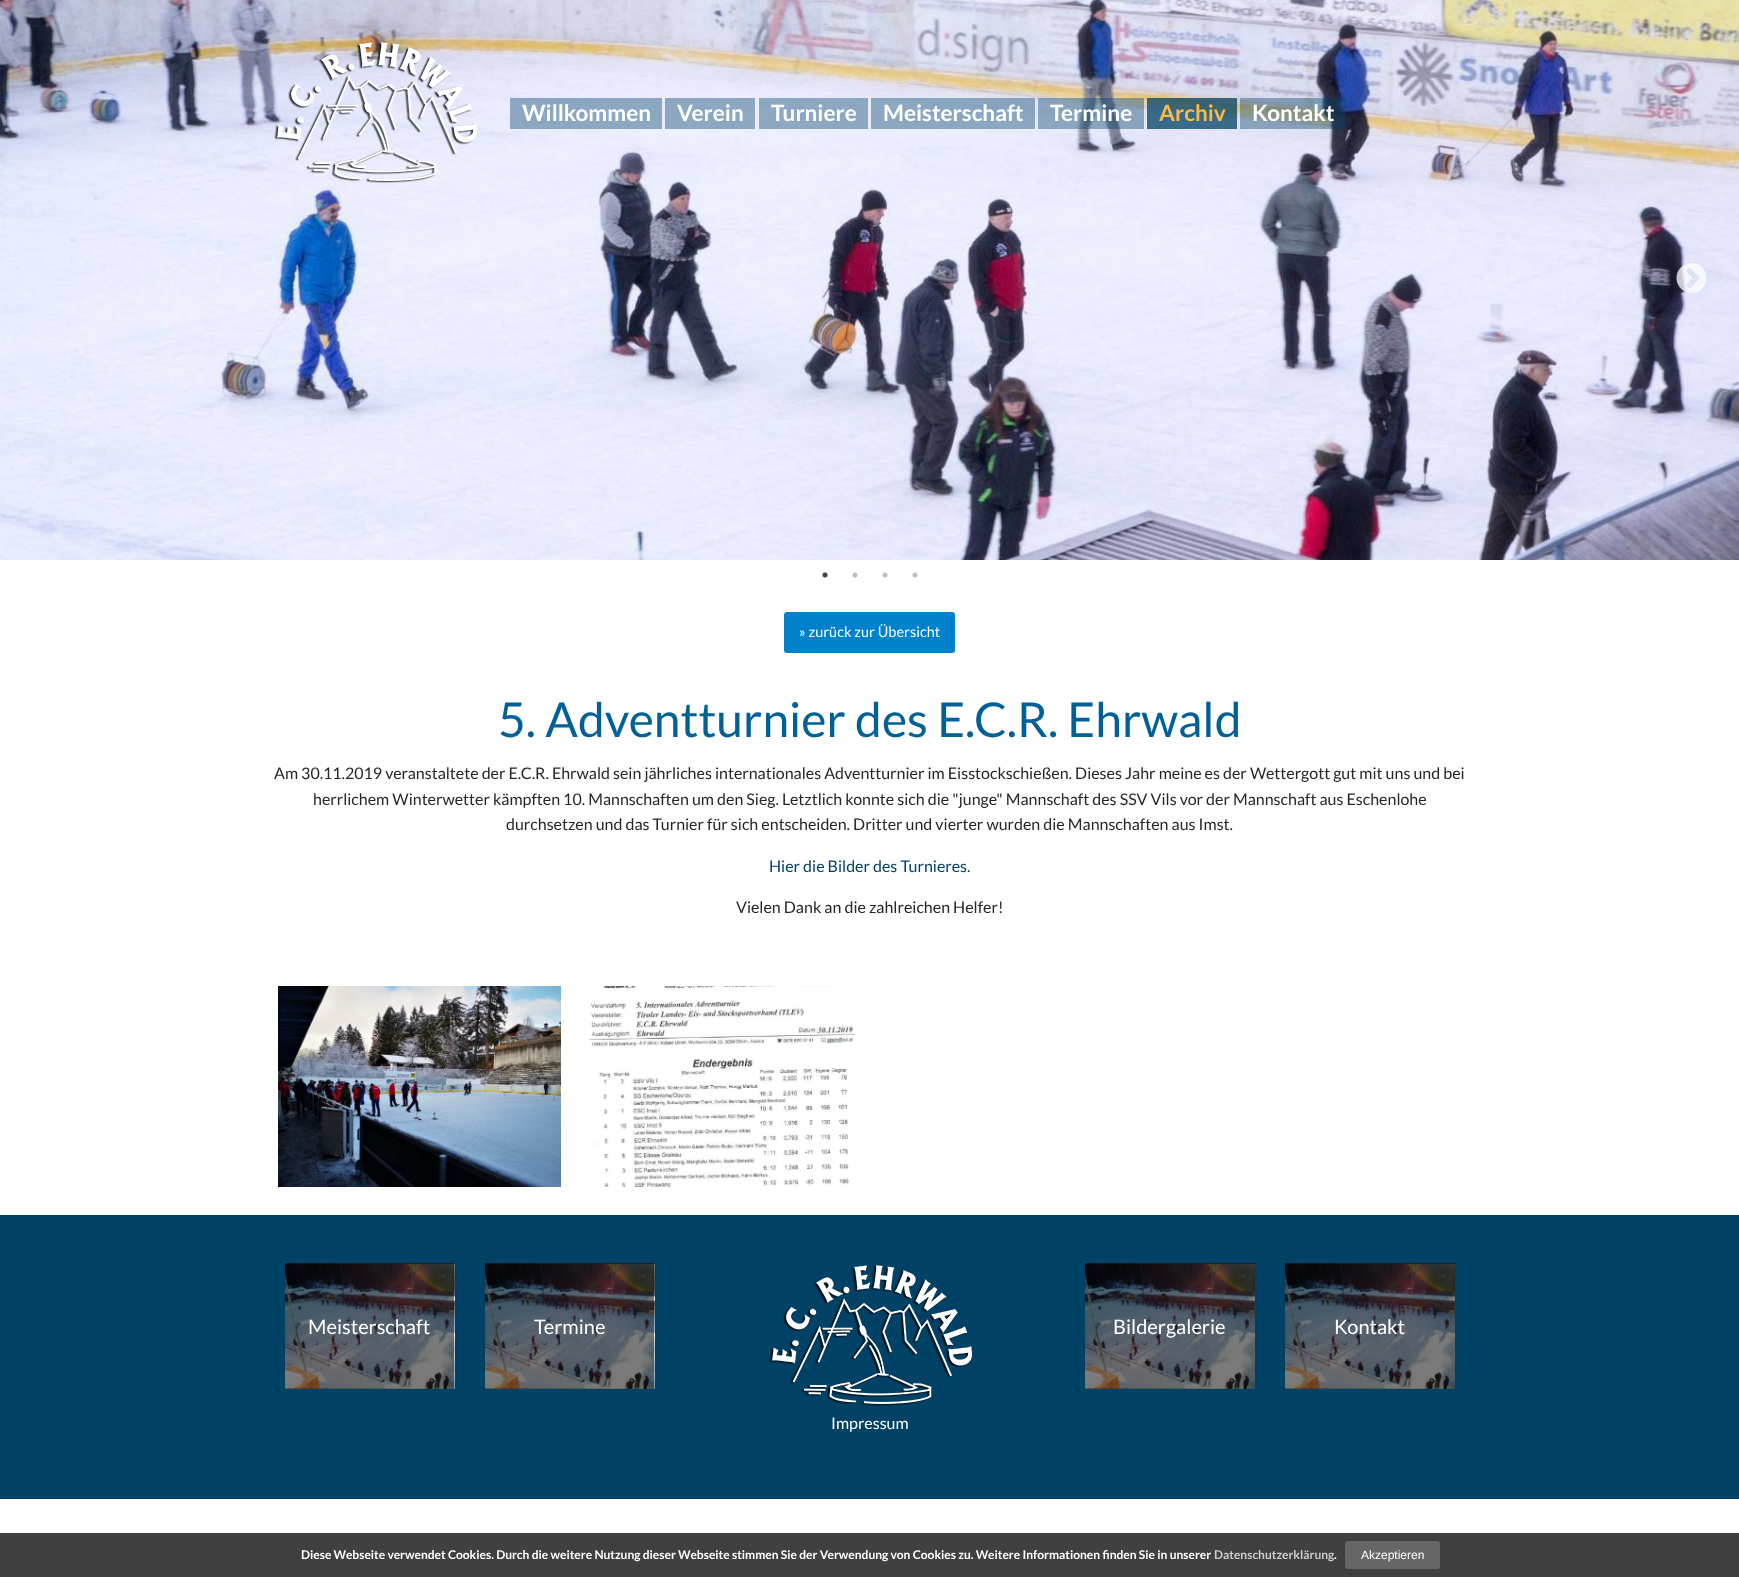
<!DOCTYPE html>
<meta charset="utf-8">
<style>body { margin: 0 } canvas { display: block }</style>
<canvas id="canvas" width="1739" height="1577"></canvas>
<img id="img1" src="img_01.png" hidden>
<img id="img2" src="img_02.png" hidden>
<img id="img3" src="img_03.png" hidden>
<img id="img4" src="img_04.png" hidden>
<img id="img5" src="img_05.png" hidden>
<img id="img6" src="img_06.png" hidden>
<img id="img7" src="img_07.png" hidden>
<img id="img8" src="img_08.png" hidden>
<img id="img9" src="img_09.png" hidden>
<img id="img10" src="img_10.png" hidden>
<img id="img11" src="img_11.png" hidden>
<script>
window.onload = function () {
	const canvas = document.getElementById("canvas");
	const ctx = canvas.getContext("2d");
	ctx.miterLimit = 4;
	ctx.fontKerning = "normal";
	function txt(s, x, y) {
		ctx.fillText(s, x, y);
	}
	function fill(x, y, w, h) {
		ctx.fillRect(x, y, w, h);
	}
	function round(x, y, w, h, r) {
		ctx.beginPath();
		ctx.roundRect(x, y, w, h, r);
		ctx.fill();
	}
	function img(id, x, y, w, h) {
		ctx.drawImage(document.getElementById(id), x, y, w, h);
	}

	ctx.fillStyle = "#FFFFFF";
	fill(0, 0, 1739, 1577);
	img("img1", 0, 0, 1739, 560);
	img("img2", 1676, 263, 31, 30);
	img("img3", 822, 572, 6, 6);
	img("img4", 852, 572, 6, 6);
	img("img4", 882, 572, 6, 6);
	img("img4", 912, 572, 6, 6);
	img("img5", 274, 42, 203, 141);
	ctx.fillStyle = "rgba(0, 65, 102, 0.4)";
	fill(510, 98, 152, 31);
	fill(665, 98, 90, 31);
	fill(759, 98, 109, 31);
	fill(871, 98, 164, 31);
	fill(1038, 98, 106, 31);
	ctx.fillStyle = "rgba(0, 65, 102, 0.5)";
	fill(1147, 98, 90, 31);
	fill(1147, 98, 90, 31);
	ctx.fillStyle = "rgba(0, 65, 102, 0.4)";
	fill(1240, 98, 106, 31);
	ctx.fillStyle = "#0081CC";
	round(784, 612, 171, 41, 3);
	img("img6", 278, 986, 283, 201);
	img("img7", 589, 986, 266, 201);
	ctx.fillStyle = "#004166";
	fill(0, 1215, 1739, 284);
	img("img8", 285, 1263, 170, 126);
	img("img9", 485, 1263, 170, 126);
	img("img10", 1085, 1263, 170, 126);
	img("img10", 1285, 1263, 170, 126);
	img("img11", 769, 1265, 203, 141);
	ctx.fillStyle = "#404040";
	fill(0, 1533, 1739, 44);
	ctx.fillStyle = "#666666";
	round(1345, 1541, 95, 28, 3);
	ctx.font = "bold 22.5px Lato";
	ctx.fillStyle = "#FFFFFF";
	txt("Willkommen", 522, 121);
	txt("Verein", 677, 121);
	txt("Turniere", 771, 121);
	txt("Meisterschaft", 883, 121);
	txt("Termine", 1050, 121);
	ctx.fillStyle = "#FBBA41";
	txt("Archiv", 1159, 121);
	ctx.fillStyle = "#FFFFFF";
	txt("Kontakt", 1252, 121);
	ctx.font = "14.5px Lato";
	txt("» zurück zur Übersicht", 799, 637);
	ctx.font = "48px Lato";
	ctx.fillStyle = "#006199";
	txt("5. Adventturnier des E.C.R. Ehrwald", 498, 737);
	ctx.font = "16px Lato";
	ctx.fillStyle = "#262626";
	txt("Am 30.11.2019 veranstaltete der E.C.R. Ehrwald sein jährliches internationales Adventturnier im Eisstockschießen. Dieses Jahr meine es der Wettergott gut mit uns und bei", 274, 779);
	txt("herrlichem Winterwetter kämpften 10. Mannschaften um den Sieg. Letztlich konnte sich die \"junge\" Mannschaft des SSV Vils vor der Mannschaft aus Eschenlohe", 313, 805);
	txt("durchsetzen und das Turnier für sich entscheiden. Dritter und vierter wurden die Mannschaften aus Imst.", 506, 830);
	ctx.fillStyle = "#004166";
	txt("Hier die Bilder des Turnieres.", 769, 872);
	ctx.fillStyle = "#262626";
	txt("Vielen Dank an die zahlreichen Helfer!", 736, 913);
	ctx.font = "20px Lato";
	ctx.fillStyle = "#FFFFFF";
	txt("Meisterschaft", 308, 1334);
	txt("Termine", 534, 1334);
	txt("Bildergalerie", 1113, 1334);
	txt("Kontakt", 1334, 1334);
	ctx.font = "16px Lato";
	txt("Impressum", 831, 1429);
	ctx.font = "bold 12px Lato";
	txt("Diese Webseite verwendet Cookies. Durch die weitere Nutzung dieser Webseite stimmen Sie der Verwendung von Cookies zu. Weitere Informationen finden Sie in unserer", 301, 1559);
	ctx.fillStyle = "#CCCCCC";
	txt("Datenschutzerklärung", 1214, 1559);
	ctx.fillStyle = "#FFFFFF";
	txt(".", 1334, 1559);
	ctx.font = "12px Liberation Sans";
	txt("Akzeptieren", 1361, 1559);
};
</script>
